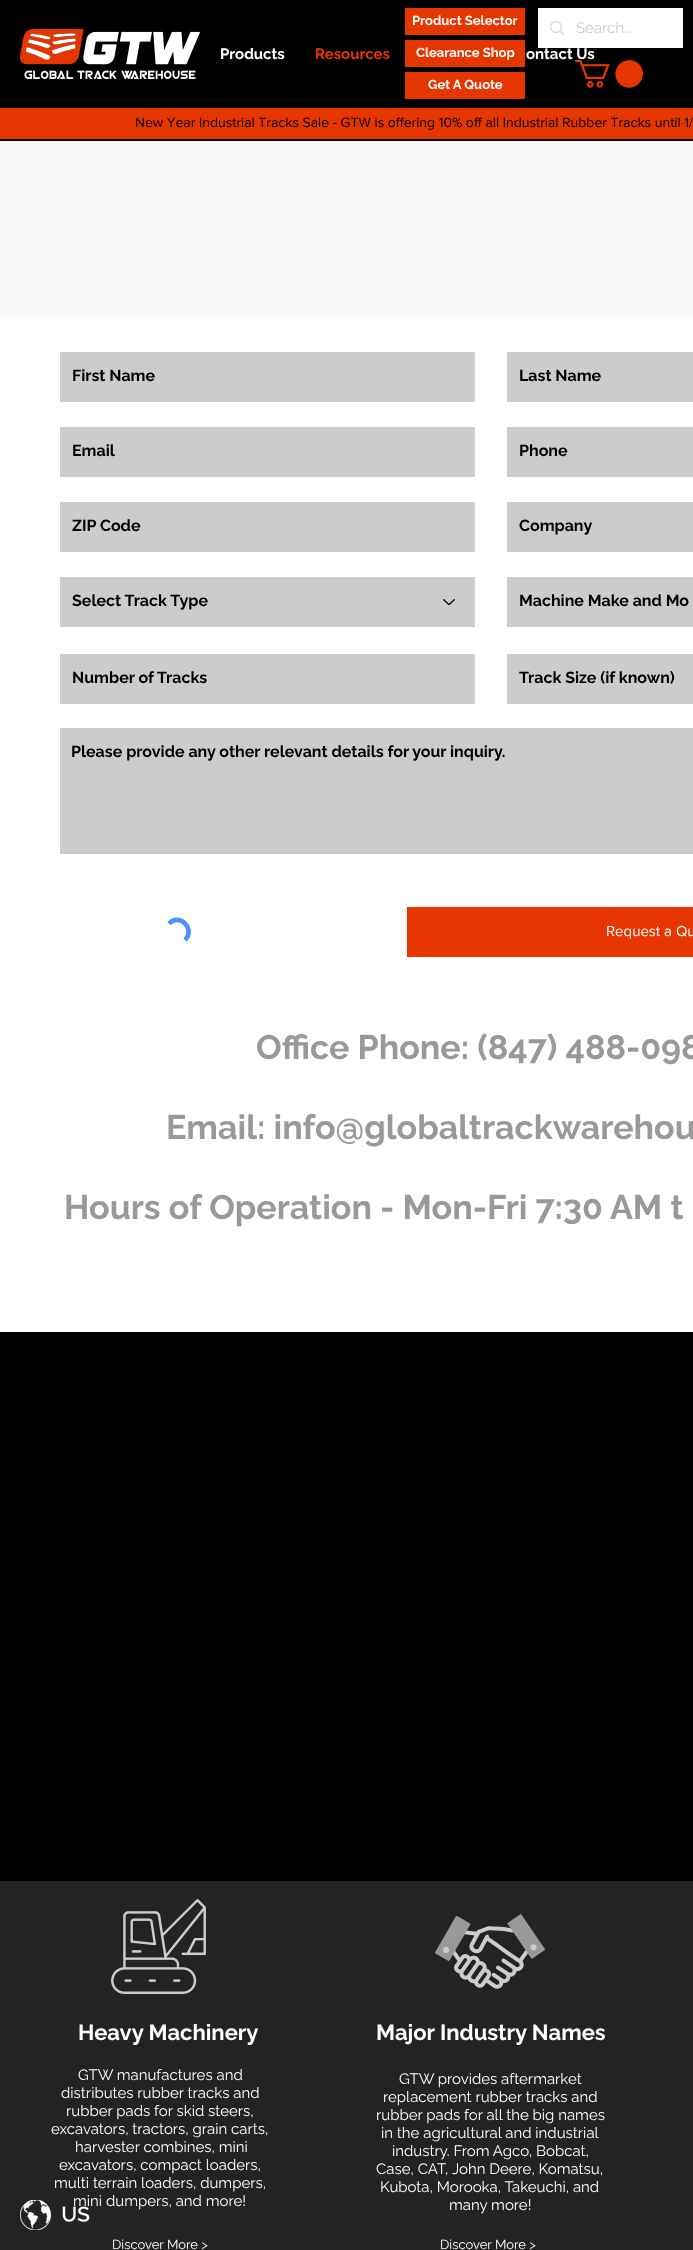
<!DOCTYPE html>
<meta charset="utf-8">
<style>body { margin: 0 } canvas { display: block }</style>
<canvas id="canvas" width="693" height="2250"></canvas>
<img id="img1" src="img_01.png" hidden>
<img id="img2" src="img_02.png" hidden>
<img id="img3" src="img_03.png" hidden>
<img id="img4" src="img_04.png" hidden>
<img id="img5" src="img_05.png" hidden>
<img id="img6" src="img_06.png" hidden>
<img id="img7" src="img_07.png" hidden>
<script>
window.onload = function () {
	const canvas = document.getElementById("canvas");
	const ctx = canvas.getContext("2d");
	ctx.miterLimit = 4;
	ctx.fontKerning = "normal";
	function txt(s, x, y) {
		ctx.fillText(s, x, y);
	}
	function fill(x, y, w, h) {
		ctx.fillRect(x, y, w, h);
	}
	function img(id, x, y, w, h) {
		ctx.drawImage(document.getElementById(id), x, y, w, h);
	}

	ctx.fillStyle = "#000000";
	fill(0, 0, 693, 2250);
	ctx.fillStyle = "#E63600";
	fill(405, 8, 120, 27);
	ctx.fillStyle = "#FFFFFF";
	fill(538, 8, 145, 40);
	img("img1", 550, 21, 14, 14);
	ctx.fillStyle = "#E63600";
	fill(405, 40, 120, 27);
	fill(405, 72, 120, 27);
	img("img2", 575, 60, 68, 28);
	img("img3", 20, 29, 180, 50);
	fill(0, 108, 693, 31);
	ctx.fillStyle = "#FAFAFA";
	fill(0, 141, 693, 176);
	ctx.fillStyle = "#FFFFFF";
	fill(0, 317, 693, 1015);
	ctx.fillStyle = "#CCCCCC";
	fill(60, 352, 415, 50);
	fill(507, 352, 186, 50);
	fill(60, 427, 415, 50);
	fill(507, 427, 186, 50);
	fill(60, 502, 415, 50);
	fill(507, 502, 186, 50);
	fill(60, 577, 415, 50);
	img("img4", 443, 599, 12, 6);
	fill(507, 577, 186, 50);
	fill(60, 654, 415, 50);
	fill(507, 654, 186, 50);
	fill(60, 728, 633, 126);
	ctx.beginPath();
	ctx.moveTo(169, 923.5);
	ctx.bezierCurveTo(179.5, 912.5, 196, 929, 185, 940);
	ctx.strokeStyle = "#4D90FE";
	ctx.lineWidth = 4.6;
	ctx.stroke();
	ctx.fillStyle = "#E63600";
	fill(407, 907, 286, 50);
	ctx.fillStyle = "#242323";
	fill(0, 1881, 693, 369);
	img("img5", 111, 1899, 95, 95);
	img("img6", 435, 1914, 110, 75);
	ctx.font = "bold 13px Raleway";
	ctx.fillStyle = "#FFFFFF";
	txt("Product Selector", 412, 25);
	ctx.font = "15px Raleway";
	ctx.fillStyle = "#CCCCCC";
	txt("Search...", 576, 33);
	ctx.font = "bold 13px Raleway";
	ctx.fillStyle = "#FFFFFF";
	txt("Clearance Shop", 416, 57);
	txt("Get A Quote", 428, 89);
	ctx.font = "bold 15px Raleway";
	txt("Products", 220, 59);
	ctx.fillStyle = "#E63600";
	txt("Resources", 315, 59);
	ctx.fillStyle = "#FFFFFF";
	txt("ontact Us", 526, 59);
	ctx.font = "14px 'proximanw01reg'";
	ctx.fillStyle = "#000000";
	txt("New Year Industrial Tracks Sale - GTW is offering 10% off all Industrial Rubber Tracks until 1/", 135, 127);
	ctx.font = "bold 16px Raleway";
	txt("First Name", 72, 381);
	txt("Last Name", 519, 381);
	txt("Email", 72, 456);
	txt("Phone", 519, 456);
	txt("ZIP Code", 72, 531);
	txt("Company", 519, 531);
	txt("Select Track Type", 72, 606);
	txt("Machine Make and Mo", 519, 606);
	txt("Number of Tracks", 72, 683);
	txt("Track Size (if known)", 519, 683);
	txt("Please provide any other relevant details for your inquiry.", 71, 757);
	ctx.font = "15px 'proximanw01reg'";
	ctx.fillStyle = "#FFFFFF";
	txt("Request a Qu", 606, 936);
	ctx.font = "bold 34px Raleway";
	ctx.fillStyle = "#999999";
	txt("Office Phone: (847) 488-098", 256, 1059);
	txt("Email: info@globaltrackwarehou", 166, 1139);
	txt("Hours of Operation - Mon-Fri 7:30 AM t", 64, 1219);
	ctx.font = "bold 22px Raleway";
	ctx.fillStyle = "#FFFFFF";
	txt("Heavy Machinery", 78, 2040);
	txt("Major Industry Names", 376, 2040);
	ctx.font = "15px Raleway";
	txt("GTW provides aftermarket", 399, 2084);
	txt("replacement rubber tracks and", 383, 2102);
	txt("rubber pads for all the big names", 376, 2120);
	txt("in the agricultural and industrial", 381, 2138);
	txt("industry. From Agco, Bobcat,", 392, 2156);
	txt("Case, CAT, John Deere, Komatsu,", 376, 2174);
	txt("Kubota, Morooka, Takeuchi, and", 380, 2192);
	txt("many more!", 449, 2210);
	ctx.font = "13px Raleway";
	txt("Discover More >", 112, 2249);
	txt("Discover More >", 440, 2249);
	ctx.font = "15px Raleway";
	txt("GTW manufactures and", 78, 2080);
	txt("distributes rubber tracks and", 61, 2098);
	txt("rubber pads for skid steers,", 66, 2116);
	txt("excavators, tractors, grain carts,", 51, 2134);
	txt("harvester combines, mini", 75, 2152);
	txt("excavators, compact loaders,", 59, 2170);
	txt("multi terrain loaders, dumpers,", 54, 2188);
	txt("mini dumpers, and more!", 73, 2206);
	img("img7", 20, 2200, 70, 30);
};
</script>
